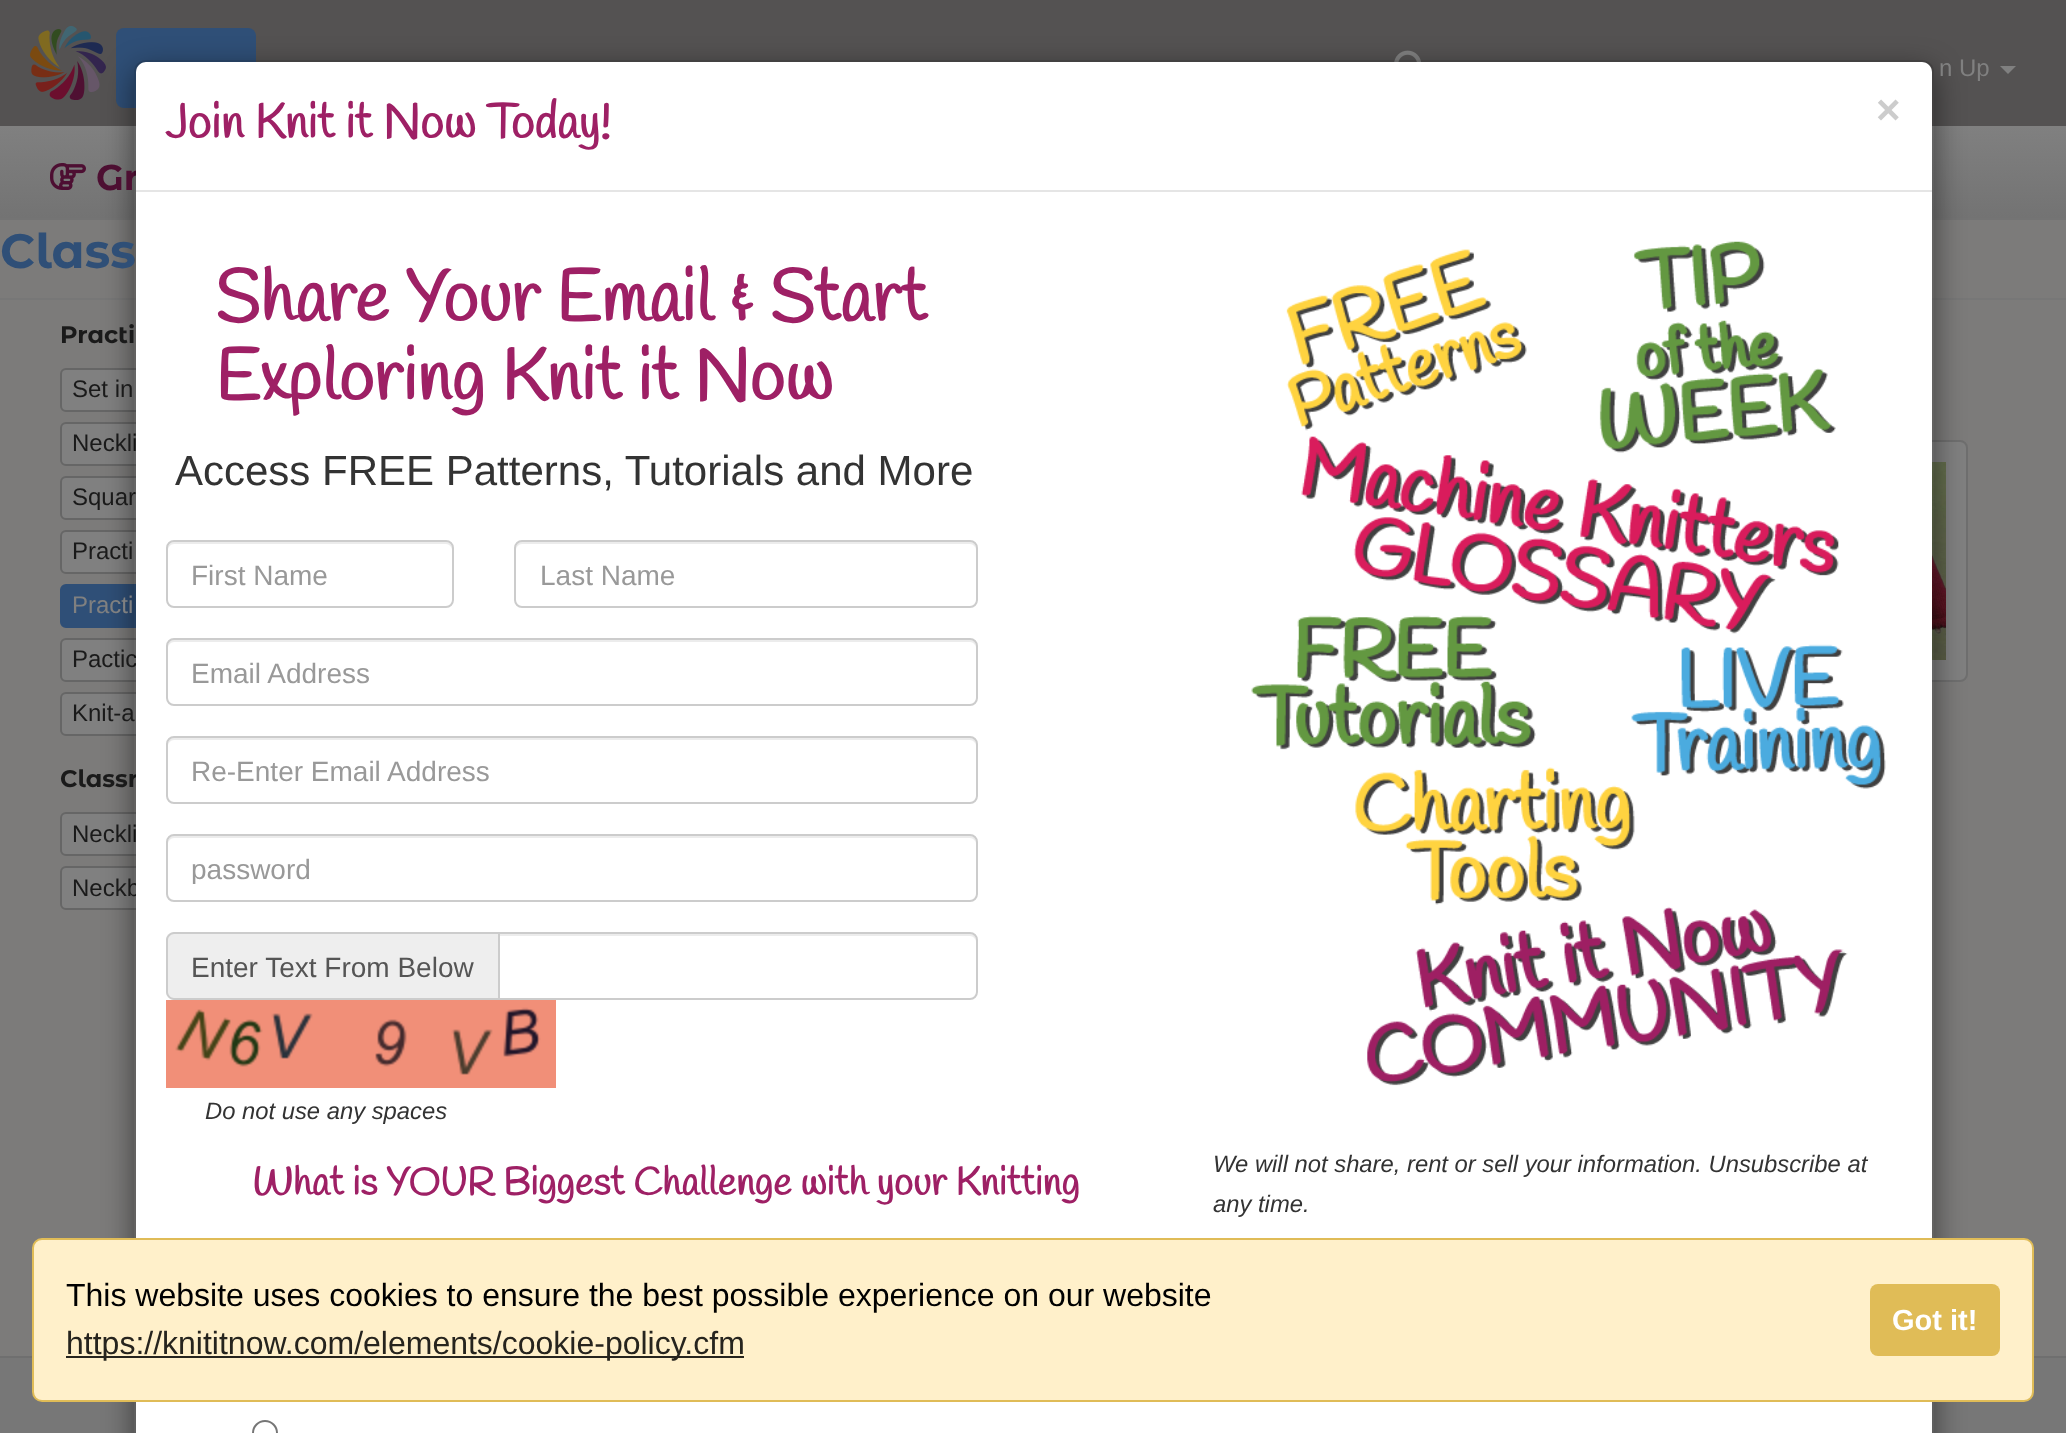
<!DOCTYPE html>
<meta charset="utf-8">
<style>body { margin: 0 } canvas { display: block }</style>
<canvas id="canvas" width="2066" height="1433"></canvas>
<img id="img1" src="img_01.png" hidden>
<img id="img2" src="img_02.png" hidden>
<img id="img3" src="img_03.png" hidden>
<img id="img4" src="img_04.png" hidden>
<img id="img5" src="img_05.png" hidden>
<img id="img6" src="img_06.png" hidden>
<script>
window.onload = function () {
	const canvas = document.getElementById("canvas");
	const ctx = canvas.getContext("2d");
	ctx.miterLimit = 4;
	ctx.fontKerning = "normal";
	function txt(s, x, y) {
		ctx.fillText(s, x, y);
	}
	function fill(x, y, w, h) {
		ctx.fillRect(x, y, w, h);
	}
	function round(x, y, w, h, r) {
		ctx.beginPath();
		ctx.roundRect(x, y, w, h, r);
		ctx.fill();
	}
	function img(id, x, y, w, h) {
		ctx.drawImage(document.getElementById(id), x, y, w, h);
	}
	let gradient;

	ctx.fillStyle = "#777777";
	fill(0, 0, 2066, 1433);
	ctx.fillStyle = "#545252";
	fill(0, 0, 2066, 126);
	ctx.fillStyle = "#747474";
	fill(0, 218, 2066, 2);
	img("img1", 30, 26, 76, 74);
	ctx.fillStyle = "#2F4F77";
	round(116, 28, 140, 80, 8);
	img("img2", 1394, 50, 27, 12);
	ctx.fillStyle = "#808080";
	ctx.beginPath();
	ctx.moveTo(2000, 66);
	ctx.lineTo(2016, 66);
	ctx.lineTo(2008, 74);
	ctx.closePath();
	ctx.fill();
	gradient = ctx.createLinearGradient(1033, 126, 1033, 218);
	gradient.addColorStop(0, "#808080");
	gradient.addColorStop(1, "#737373");
	ctx.fillStyle = gradient;
	fill(0, 126, 2066, 92);
	img("img3", 50, 163, 36, 27);
	ctx.fillStyle = "#7C7B7A";
	fill(0, 220, 2066, 1136);
	ctx.fillStyle = "#777777";
	fill(0, 298, 2066, 2);
	ctx.fillStyle = "#808080";
	ctx.beginPath();
	ctx.roundRect(61, 369, 394, 42, 5);
	ctx.fill();
	ctx.strokeStyle = "#666666";
	ctx.lineWidth = 2;
	ctx.stroke();
	ctx.beginPath();
	ctx.roundRect(61, 423, 394, 42, 5);
	ctx.fill();
	ctx.stroke();
	ctx.beginPath();
	ctx.roundRect(61, 477, 394, 42, 5);
	ctx.fill();
	ctx.stroke();
	ctx.beginPath();
	ctx.roundRect(61, 531, 394, 42, 5);
	ctx.fill();
	ctx.stroke();
	ctx.fillStyle = "#2F4F77";
	ctx.beginPath();
	ctx.roundRect(61, 585, 394, 42, 5);
	ctx.fill();
	ctx.strokeStyle = "#2F4F77";
	ctx.stroke();
	ctx.fillStyle = "#808080";
	ctx.beginPath();
	ctx.roundRect(61, 639, 394, 42, 5);
	ctx.fill();
	ctx.strokeStyle = "#666666";
	ctx.stroke();
	ctx.beginPath();
	ctx.roundRect(61, 693, 394, 42, 5);
	ctx.fill();
	ctx.stroke();
	ctx.beginPath();
	ctx.roundRect(61, 813, 394, 42, 5);
	ctx.fill();
	ctx.stroke();
	ctx.beginPath();
	ctx.roundRect(61, 867, 394, 42, 5);
	ctx.fill();
	ctx.stroke();
	ctx.beginPath();
	ctx.roundRect(1649, 441, 318, 240, 7);
	ctx.fill();
	ctx.strokeStyle = "#6F6F6F";
	ctx.stroke();
	img("img4", 1932, 462, 14, 198);
	ctx.fillStyle = "#6F6F6F";
	fill(0, 1356, 2066, 2);
	ctx.save();
	ctx.beginPath();
	ctx.moveTo(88, 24);
	ctx.lineTo(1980, 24);
	ctx.lineTo(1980, 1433);
	ctx.lineTo(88, 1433);
	ctx.closePath();
	ctx.moveTo(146, 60);
	ctx.lineTo(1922, 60);
	ctx.bezierCurveTo(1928.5, 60, 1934, 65.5, 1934, 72);
	ctx.lineTo(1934, 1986);
	ctx.bezierCurveTo(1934, 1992.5, 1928.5, 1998, 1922, 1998);
	ctx.lineTo(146, 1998);
	ctx.bezierCurveTo(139.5, 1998, 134, 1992.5, 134, 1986);
	ctx.lineTo(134, 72);
	ctx.bezierCurveTo(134, 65.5, 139.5, 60, 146, 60);
	ctx.closePath();
	ctx.clip("evenodd");
	ctx.fillStyle = "rgba(0, 0, 0, 0.5)";
	ctx.filter = "blur(15px)";
	ctx.beginPath();
	ctx.roundRect(134, 70, 1800, 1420, 12);
	ctx.fill();
	ctx.filter = "none";
	ctx.restore();
	ctx.font = "24px Liberation Sans";
	ctx.fillStyle = "#808080";
	txt("n Up", 1939, 76);
	ctx.font = "bold 36px Montserrat Alternates";
	ctx.fillStyle = "#4D0F32";
	txt("Gr", 96, 190);
	ctx.font = "bold 48px Montserrat Alternates";
	ctx.fillStyle = "#2F4F77";
	txt("Class", 0, 268);
	ctx.font = "bold 24px Montserrat Alternates";
	ctx.fillStyle = "#1A1A1A";
	txt("Practi", 60, 343);
	ctx.font = "24px Liberation Sans";
	txt("Set in", 72, 397);
	txt("Neckli", 72, 451);
	txt("Squar", 72, 505);
	txt("Practi", 72, 559);
	ctx.fillStyle = "#808080";
	txt("Practi", 72, 613);
	ctx.fillStyle = "#1A1A1A";
	txt("Pactic", 72, 667);
	txt("Knit-a", 72, 721);
	ctx.font = "bold 24px Montserrat Alternates";
	txt("Classr", 60, 787);
	ctx.font = "24px Liberation Sans";
	txt("Neckli", 72, 842);
	txt("Neckb", 72, 896);
	ctx.fillStyle = "#FFFFFF";
	ctx.beginPath();
	ctx.moveTo(146, 62);
	ctx.lineTo(1922, 62);
	ctx.bezierCurveTo(1927.5, 62, 1932, 66.5, 1932, 72);
	ctx.lineTo(1932, 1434);
	ctx.lineTo(136, 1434);
	ctx.lineTo(136, 72);
	ctx.bezierCurveTo(136, 66.5, 140.5, 62, 146, 62);
	ctx.closePath();
	ctx.fill();
	ctx.beginPath();
	ctx.roundRect(135, 61, 1798, 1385, 11);
	ctx.strokeStyle = "rgba(0, 0, 0, 0.2)";
	ctx.stroke();
	ctx.fillStyle = "#E5E5E5";
	fill(136, 190, 1796, 2);
	ctx.font = "bold 48px Handlee";
	ctx.fillStyle = "#9E2065";
	txt("Join Knit it Now Today!", 165, 138);
	ctx.font = "bold 42px Liberation Sans";
	ctx.fillStyle = "#CCCCCC";
	txt("×", 1876, 124);
	ctx.font = "bold 72px Handlee";
	ctx.fillStyle = "#9E2065";
	txt("Share Your Email & Start", 215, 321);
	txt("Exploring Knit it Now", 215, 400);
	ctx.font = "42px Liberation Sans";
	ctx.fillStyle = "#333333";
	txt("Access FREE Patterns, Tutorials and More", 175, 485);
	ctx.fillStyle = "#ECECEC";
	ctx.beginPath();
	ctx.moveTo(174, 544);
	ctx.lineTo(446, 544);
	ctx.bezierCurveTo(449, 544, 452, 547, 452, 550);
	ctx.lineTo(452, 548);
	ctx.bezierCurveTo(452, 545, 449, 542, 446, 542);
	ctx.lineTo(174, 542);
	ctx.bezierCurveTo(171, 542, 168, 545, 168, 548);
	ctx.lineTo(168, 550);
	ctx.bezierCurveTo(168, 547, 171, 544, 174, 544);
	ctx.closePath();
	ctx.fill();
	ctx.beginPath();
	ctx.roundRect(167, 541, 286, 66, 7);
	ctx.strokeStyle = "#CCCCCC";
	ctx.stroke();
	ctx.font = "28px Liberation Sans";
	ctx.fillStyle = "#999999";
	txt("First Name", 191, 585);
	ctx.fillStyle = "#ECECEC";
	ctx.beginPath();
	ctx.moveTo(522, 544);
	ctx.lineTo(970, 544);
	ctx.bezierCurveTo(973, 544, 976, 547, 976, 550);
	ctx.bezierCurveTo(976, 546, 975, 542, 970, 542);
	ctx.lineTo(522, 542);
	ctx.bezierCurveTo(517, 542, 516, 546, 516, 550);
	ctx.bezierCurveTo(516, 547, 519, 544, 522, 544);
	ctx.closePath();
	ctx.fill();
	ctx.beginPath();
	ctx.roundRect(515, 541, 462, 66, 7);
	ctx.stroke();
	ctx.fillStyle = "#999999";
	txt("Last Name", 540, 585);
	ctx.fillStyle = "#ECECEC";
	ctx.beginPath();
	ctx.moveTo(174, 642);
	ctx.lineTo(970, 642);
	ctx.bezierCurveTo(973, 642, 976, 645, 976, 648);
	ctx.bezierCurveTo(976, 644, 975, 640, 970, 640);
	ctx.lineTo(174, 640);
	ctx.bezierCurveTo(169, 640, 168, 644, 168, 648);
	ctx.bezierCurveTo(168, 645, 171, 642, 174, 642);
	ctx.closePath();
	ctx.fill();
	ctx.beginPath();
	ctx.roundRect(167, 639, 810, 66, 7);
	ctx.stroke();
	ctx.fillStyle = "#999999";
	txt("Email Address", 191, 683);
	ctx.fillStyle = "#ECECEC";
	ctx.beginPath();
	ctx.moveTo(174, 740);
	ctx.lineTo(970, 740);
	ctx.bezierCurveTo(973, 740, 976, 743, 976, 746);
	ctx.bezierCurveTo(976, 742, 975, 738, 970, 738);
	ctx.lineTo(174, 738);
	ctx.bezierCurveTo(169, 738, 168, 742, 168, 746);
	ctx.bezierCurveTo(168, 743, 171, 740, 174, 740);
	ctx.closePath();
	ctx.fill();
	ctx.beginPath();
	ctx.roundRect(167, 737, 810, 66, 7);
	ctx.stroke();
	ctx.fillStyle = "#999999";
	txt("Re-Enter Email Address", 191, 781);
	ctx.fillStyle = "#ECECEC";
	ctx.beginPath();
	ctx.moveTo(174, 838);
	ctx.lineTo(970, 838);
	ctx.bezierCurveTo(973, 838, 976, 841, 976, 844);
	ctx.bezierCurveTo(976, 840, 975, 836, 970, 836);
	ctx.lineTo(174, 836);
	ctx.bezierCurveTo(169, 836, 168, 840, 168, 844);
	ctx.bezierCurveTo(168, 841, 171, 838, 174, 838);
	ctx.closePath();
	ctx.fill();
	ctx.beginPath();
	ctx.roundRect(167, 835, 810, 66, 7);
	ctx.stroke();
	ctx.save();
	ctx.beginPath();
	ctx.rect(192, 852, 760, 32);
	ctx.clip();
	ctx.fillStyle = "#999999";
	txt("password", 191, 879);
	ctx.restore();
	ctx.fillStyle = "#EEEEEE";
	ctx.beginPath();
	ctx.roundRect(166, 932, 332, 68, [8, 0, 0, 8]);
	ctx.fill();
	ctx.fillStyle = "#CCCCCC";
	ctx.beginPath();
	ctx.moveTo(174, 932);
	ctx.lineTo(498, 932);
	ctx.lineTo(498, 1000);
	ctx.lineTo(174, 1000);
	ctx.bezierCurveTo(170, 1000, 166, 996, 166, 992);
	ctx.lineTo(166, 940);
	ctx.bezierCurveTo(166, 936, 170, 932, 174, 932);
	ctx.closePath();
	ctx.moveTo(174, 934);
	ctx.lineTo(498, 934);
	ctx.lineTo(498, 998);
	ctx.lineTo(174, 998);
	ctx.bezierCurveTo(171, 998, 168, 995, 168, 992);
	ctx.lineTo(168, 940);
	ctx.bezierCurveTo(168, 937, 171, 934, 174, 934);
	ctx.closePath();
	ctx.fill("evenodd");
	ctx.fillStyle = "#555555";
	txt("Enter Text From Below", 191, 977);
	ctx.fillStyle = "#ECECEC";
	ctx.beginPath();
	ctx.moveTo(500, 936);
	ctx.lineTo(970, 936);
	ctx.bezierCurveTo(973, 936, 976, 939, 976, 942);
	ctx.bezierCurveTo(976, 938, 975, 934, 970, 934);
	ctx.lineTo(500, 934);
	ctx.closePath();
	ctx.fill();
	ctx.beginPath();
	ctx.roundRect(499, 933, 478, 66, [0, 7, 7, 0]);
	ctx.stroke();
	img("img5", 166, 1000, 390, 88);
	ctx.font = "italic 23.8px Liberation Sans";
	ctx.fillStyle = "#333333";
	txt("Do not use any spaces", 205, 1119);
	ctx.font = "bold 39.2px Handlee";
	ctx.fillStyle = "#9E2065";
	txt("What is YOUR Biggest Challenge with your Knitting", 252, 1195);
	ctx.beginPath();
	ctx.arc(265, 1433, 12, 0, Math.PI * 2);
	ctx.strokeStyle = "#767676";
	ctx.stroke();
	img("img6", 1251, 241, 635, 845);
	ctx.font = "italic 23.8px Liberation Sans";
	ctx.fillStyle = "#333333";
	txt("We will not share, rent or sell your information. Unsubscribe at", 1213, 1172);
	txt("any time.", 1213, 1212);
	ctx.fillStyle = "#FFF0CA";
	ctx.beginPath();
	ctx.roundRect(33, 1239, 2000, 162, 9);
	ctx.fill();
	ctx.strokeStyle = "#E0BC57";
	ctx.stroke();
	ctx.font = "32px Liberation Sans";
	ctx.fillStyle = "#000000";
	txt("This website uses cookies to ensure the best possible experience on our website", 66, 1306);
	ctx.fillStyle = "#26241E";
	fill(66, 1356, 678, 2);
	txt("https://knititnow.com/elements/cookie-policy.cfm", 66, 1354);
	ctx.fillStyle = "#E0BC57";
	round(1870, 1284, 130, 72, 8);
	ctx.font = "bold 29px Liberation Sans";
	ctx.fillStyle = "#FFFFFF";
	txt("Got it!", 1892, 1330);
};
</script>
